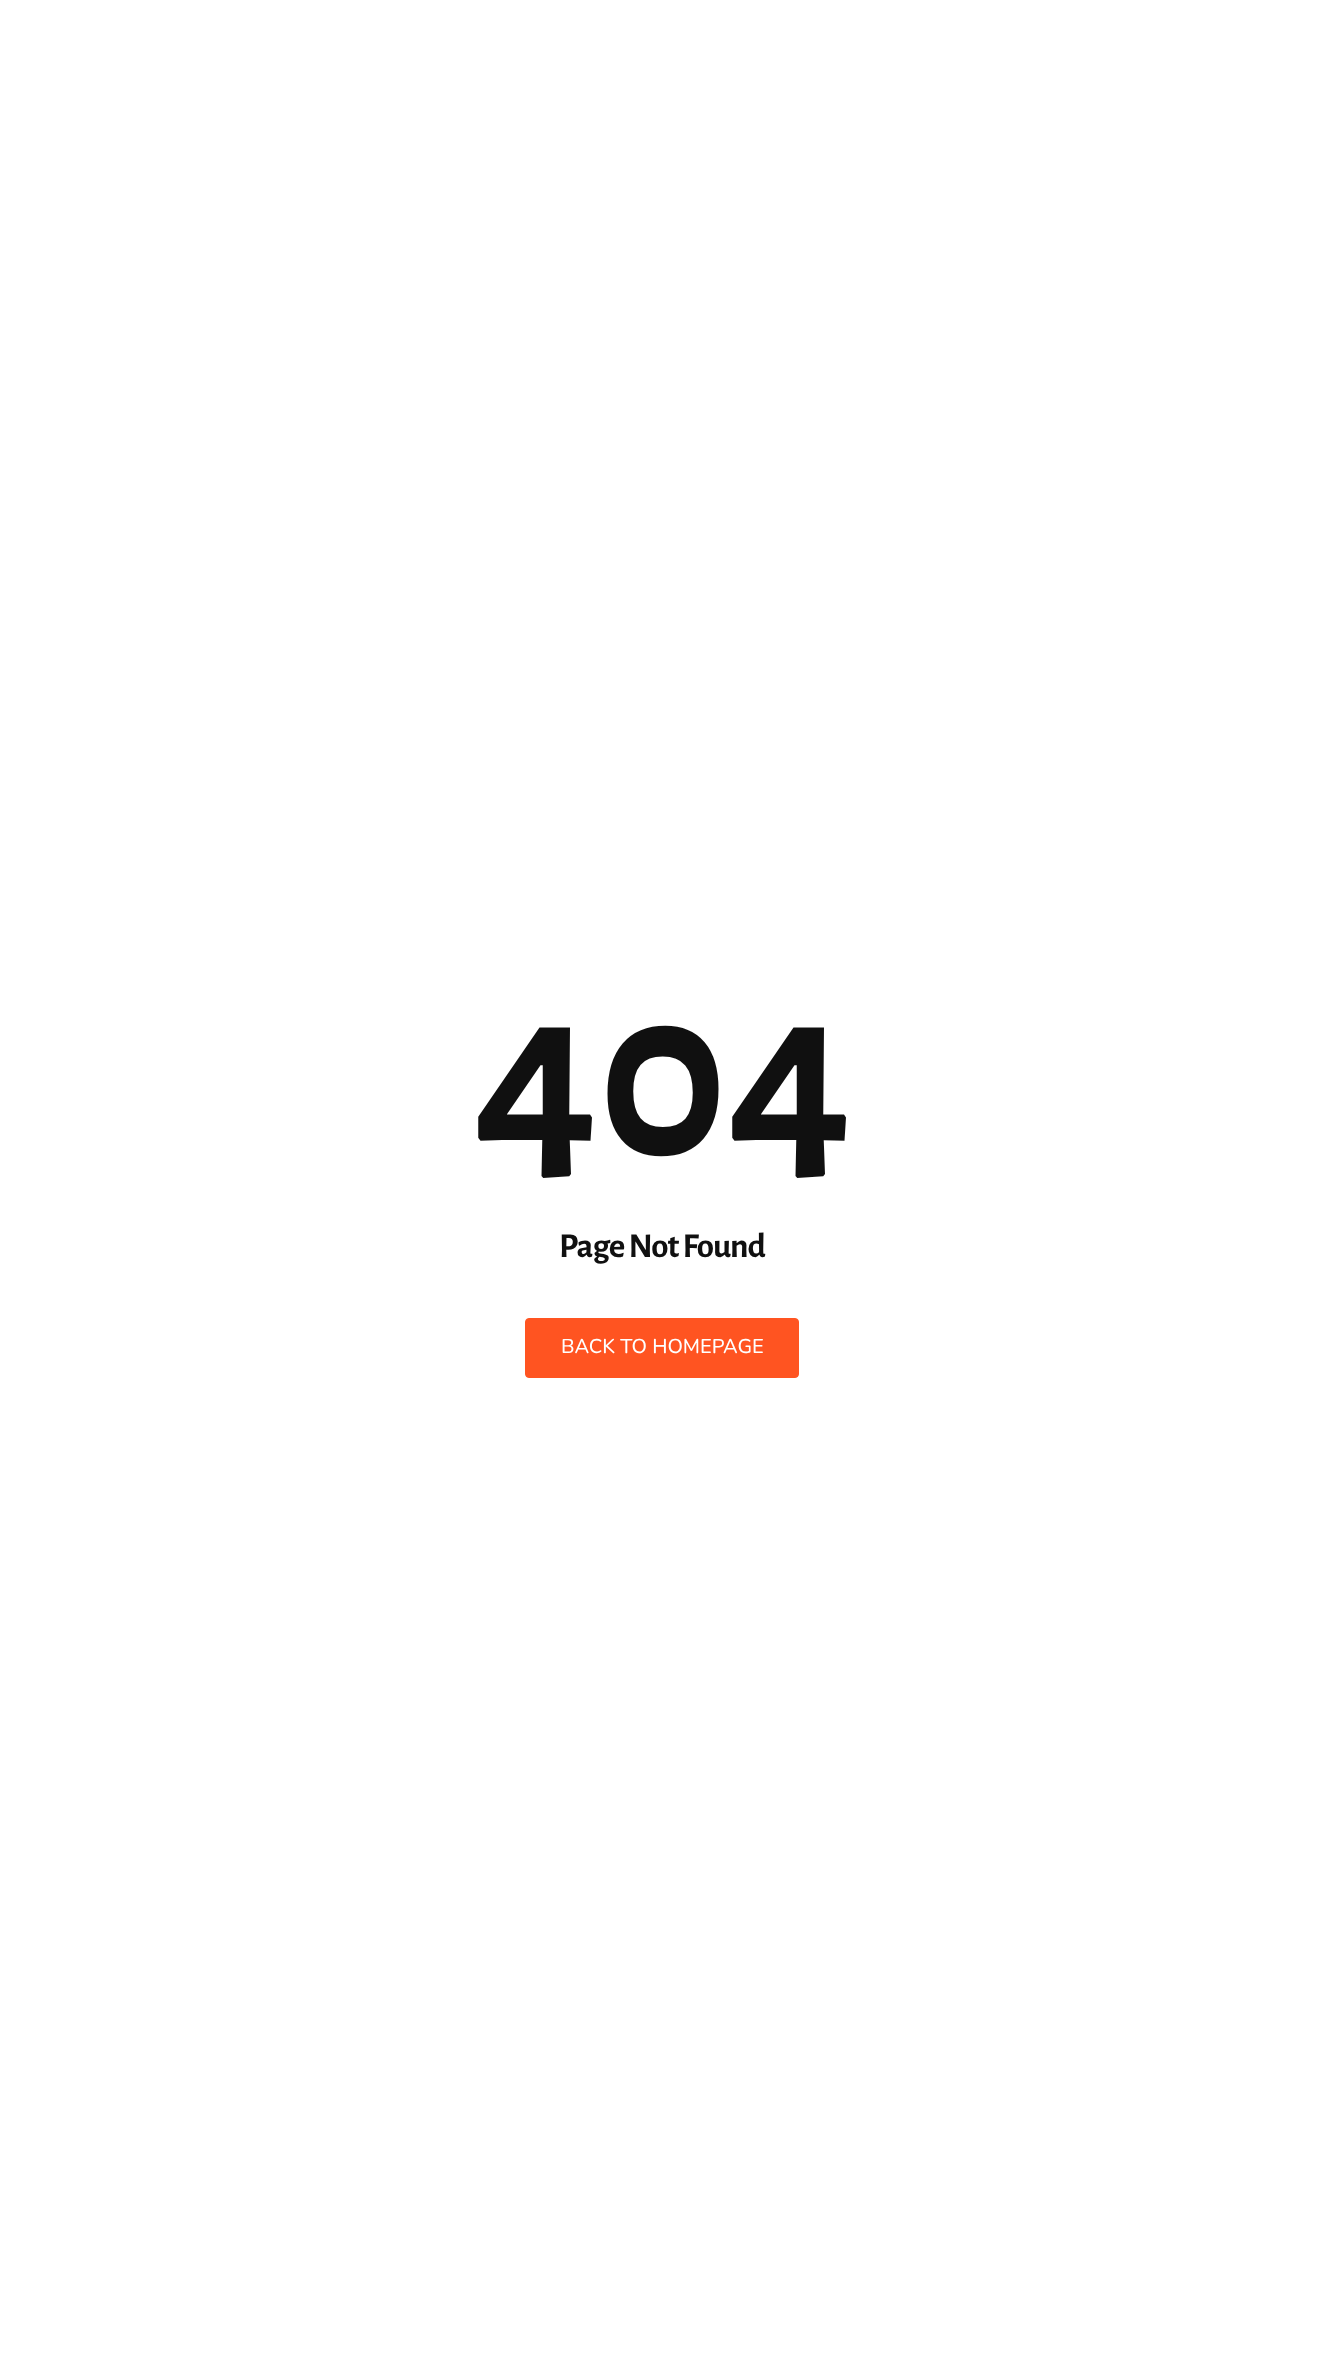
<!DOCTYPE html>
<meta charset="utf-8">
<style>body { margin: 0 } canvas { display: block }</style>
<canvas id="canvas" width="1324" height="2369"></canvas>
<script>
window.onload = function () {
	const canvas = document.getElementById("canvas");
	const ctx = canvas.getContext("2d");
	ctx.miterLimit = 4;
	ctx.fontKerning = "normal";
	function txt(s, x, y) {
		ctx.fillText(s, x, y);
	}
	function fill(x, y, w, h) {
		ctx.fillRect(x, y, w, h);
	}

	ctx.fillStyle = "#FFFFFF";
	fill(0, 0, 1324, 2369);
	ctx.fillStyle = "#FF5421";
	ctx.beginPath();
	ctx.roundRect(525.5, 1318.5, 273, 59, 3.5);
	ctx.fill();
	ctx.strokeStyle = "#FF5421";
	ctx.stroke();
	ctx.letterSpacing = "-1px";
	ctx.font = "bold 250px Alegreya Sans";
	ctx.fillStyle = "#101010";
	txt("404", 473, 1154);
	ctx.font = "bold 35px Alegreya Sans";
	txt("Page Not Found", 559, 1257);
	ctx.letterSpacing = "0px";
	ctx.font = "500 20px Nunito";
	ctx.fillStyle = "#FFFFFF";
	txt("BACK TO HOMEPAGE", 561, 1353);
};
</script>
